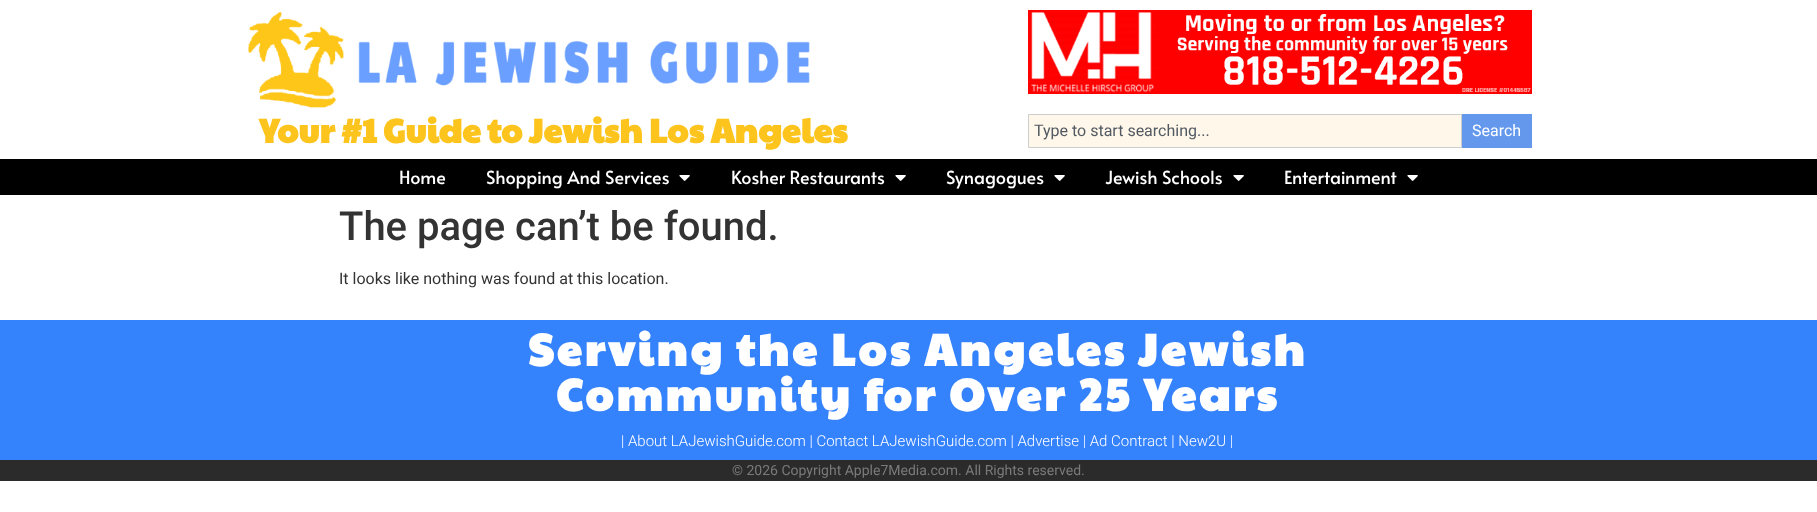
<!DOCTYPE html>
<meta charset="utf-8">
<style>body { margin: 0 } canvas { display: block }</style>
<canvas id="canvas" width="1817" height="512"></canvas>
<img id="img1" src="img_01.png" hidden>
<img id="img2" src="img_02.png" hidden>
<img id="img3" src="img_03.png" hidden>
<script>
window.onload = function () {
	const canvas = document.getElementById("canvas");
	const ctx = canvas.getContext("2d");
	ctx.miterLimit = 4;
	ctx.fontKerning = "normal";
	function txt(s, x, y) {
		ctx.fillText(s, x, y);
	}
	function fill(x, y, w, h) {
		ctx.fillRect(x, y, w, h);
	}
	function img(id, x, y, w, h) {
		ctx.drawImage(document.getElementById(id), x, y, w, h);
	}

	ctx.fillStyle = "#FFFFFF";
	fill(0, 0, 1817, 512);
	img("img1", 248, 12, 562, 96);
	img("img2", 1028, 10, 504, 84);
	ctx.fillStyle = "#FFF7E9";
	ctx.beginPath();
	ctx.rect(1028.5, 114.5, 433, 33);
	ctx.fill();
	ctx.strokeStyle = "#CDCDCD";
	ctx.stroke();
	ctx.fillStyle = "#6398EC";
	fill(1462, 114, 70, 34);
	ctx.fillStyle = "#000000";
	fill(0, 159, 1817, 36);
	img("img3", 679, 175, 11, 6);
	img("img3", 895, 175, 11, 6);
	img("img3", 1054, 175, 11, 6);
	img("img3", 1233, 175, 11, 6);
	img("img3", 1407, 175, 11, 6);
	ctx.fillStyle = "#3582FD";
	fill(0, 320, 1817, 140);
	ctx.fillStyle = "#2B2B2B";
	fill(0, 460, 1817, 21);
	ctx.font = "bold 34px Paytone One";
	ctx.fillStyle = "#FCC41C";
	txt("Your #1 Guide to Jewish Los Angeles", 259, 143);
	ctx.font = "16px Roboto";
	ctx.fillStyle = "#515962";
	txt("Type to start searching...", 1034, 136);
	ctx.fillStyle = "#FFFFFF";
	txt("Search", 1472, 136);
	ctx.font = "18px Alata";
	txt("Home", 399, 184);
	txt("Shopping And Services", 486, 184);
	txt("Kosher Restaurants", 731, 184);
	txt("Synagogues", 946, 184);
	txt("Jewish Schools", 1105, 184);
	txt("Entertainment", 1284, 184);
	ctx.font = "500 40px Roboto";
	ctx.fillStyle = "#333333";
	txt("The page can’t be found.", 339, 240);
	ctx.font = "16px Roboto";
	txt("It looks like nothing was found at this location.", 339, 284);
	ctx.letterSpacing = "3px";
	ctx.font = "bold 45px Paytone One";
	ctx.fillStyle = "#FFFFFF";
	txt("Serving the Los Angeles Jewish", 528, 366);
	txt("Community for Over 25 Years", 556, 411);
	ctx.letterSpacing = "0px";
	ctx.font = "300 15px Roboto";
	txt("| About LAJewishGuide.com | Contact LAJewishGuide.com | Advertise | Ad Contract | New2U |", 621, 446);
	ctx.font = "14px Roboto";
	ctx.fillStyle = "#7A7A7A";
	txt("© 2026 Copyright Apple7Media.com. All Rights reserved.", 732, 475);
};
</script>
